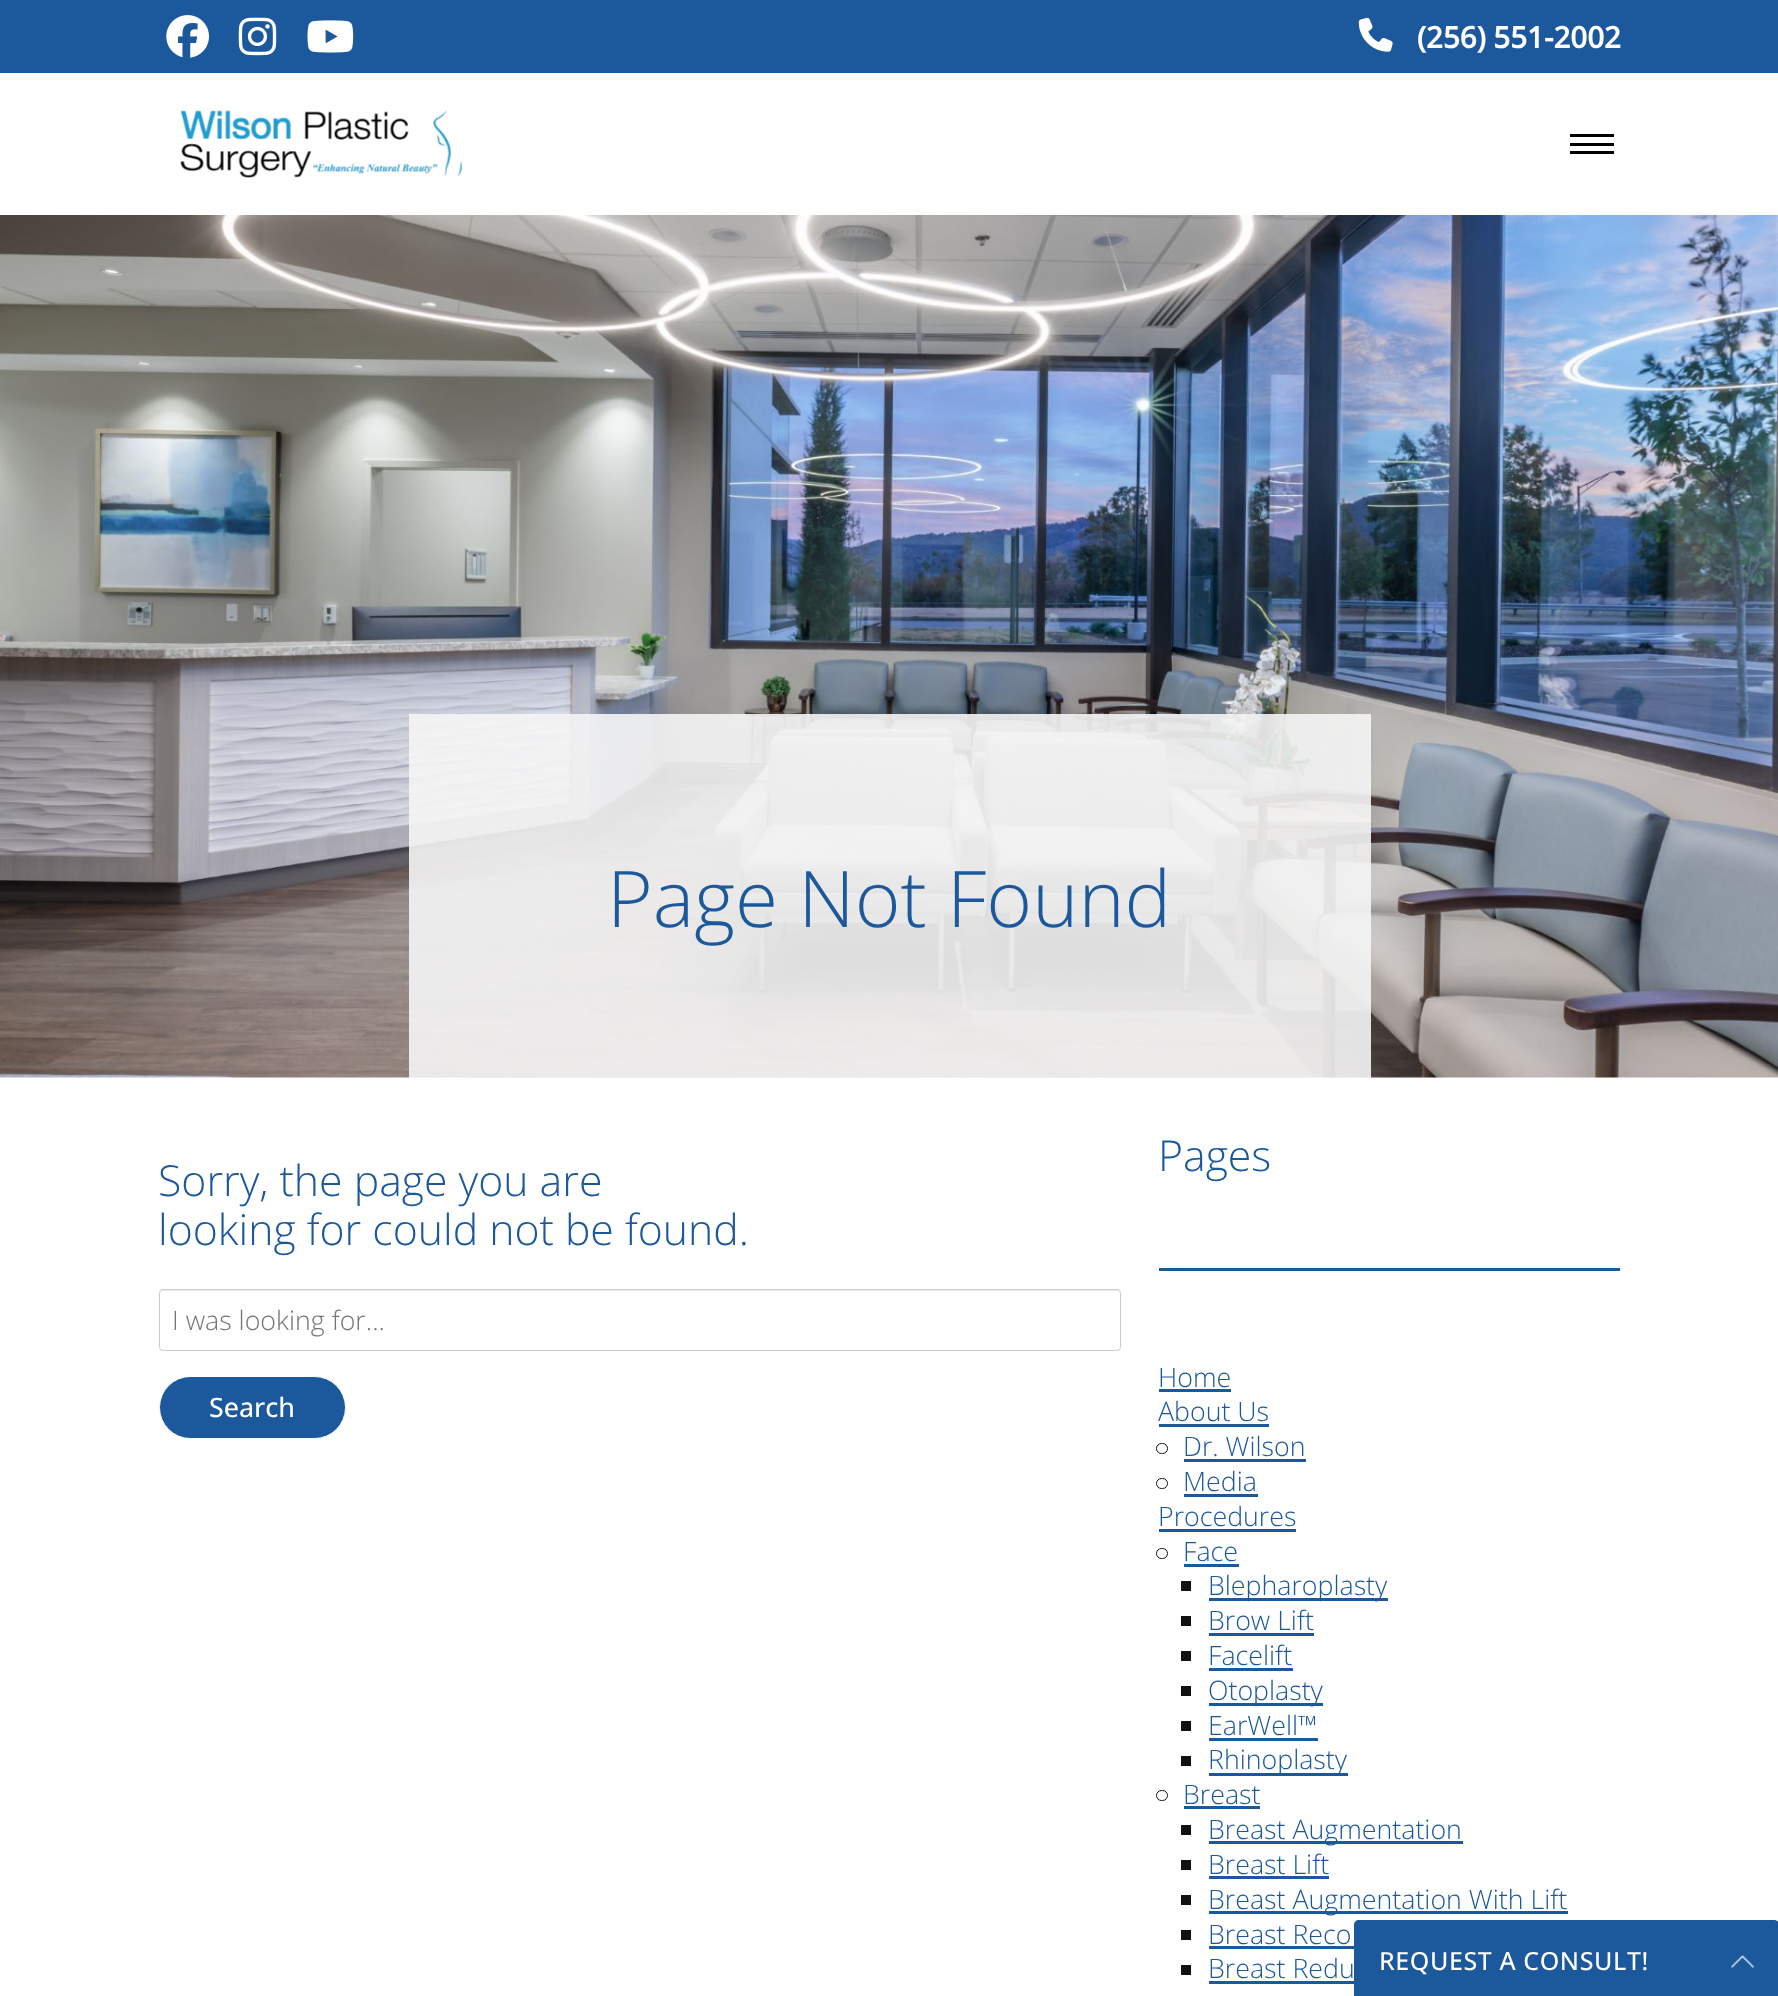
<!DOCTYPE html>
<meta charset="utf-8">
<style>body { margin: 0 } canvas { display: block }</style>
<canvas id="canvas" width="1778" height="1996"></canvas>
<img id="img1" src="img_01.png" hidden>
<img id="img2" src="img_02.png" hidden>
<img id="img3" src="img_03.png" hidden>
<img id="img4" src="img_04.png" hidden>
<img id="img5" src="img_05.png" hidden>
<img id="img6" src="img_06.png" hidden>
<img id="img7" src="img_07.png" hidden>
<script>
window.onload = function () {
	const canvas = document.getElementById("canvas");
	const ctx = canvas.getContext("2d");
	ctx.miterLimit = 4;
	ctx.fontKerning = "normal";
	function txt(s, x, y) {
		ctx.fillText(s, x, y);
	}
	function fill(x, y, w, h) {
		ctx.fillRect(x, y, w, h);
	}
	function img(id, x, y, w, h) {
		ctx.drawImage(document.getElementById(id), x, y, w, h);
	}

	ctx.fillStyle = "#FFFFFF";
	fill(0, 0, 1778, 1996);
	ctx.fillStyle = "#1C589C";
	fill(0, 0, 1778, 73);
	img("img1", 166, 15, 44, 43);
	img("img2", 238, 17, 39, 39);
	img("img3", 307, 20, 47, 33);
	img("img4", 1358, 17, 35, 35);
	img("img5", 180, 110, 283, 68);
	ctx.fillStyle = "#000000";
	fill(1570, 134, 44, 3);
	fill(1570, 143, 44, 3);
	fill(1570, 151, 44, 3);
	img("img6", 0, 215, 1778, 863);
	ctx.fillStyle = "rgba(245, 245, 245, 0.9)";
	fill(409, 714, 962, 364);
	ctx.fillStyle = "#ECECEC";
	ctx.beginPath();
	ctx.moveTo(162, 1291);
	ctx.lineTo(1118, 1291);
	ctx.bezierCurveTo(1119, 1291, 1120, 1292, 1120, 1294);
	ctx.bezierCurveTo(1120, 1292, 1120, 1290, 1118, 1290);
	ctx.lineTo(162, 1290);
	ctx.bezierCurveTo(160, 1290, 160, 1292, 160, 1294);
	ctx.bezierCurveTo(160, 1292, 161, 1291, 162, 1291);
	ctx.closePath();
	ctx.fill();
	ctx.beginPath();
	ctx.roundRect(159.5, 1289.5, 961, 61, 3.5);
	ctx.strokeStyle = "#CCCCCC";
	ctx.stroke();
	ctx.fillStyle = "#1C589C";
	ctx.beginPath();
	ctx.roundRect(159.5, 1376.5, 186, 62, 31);
	ctx.fill();
	ctx.strokeStyle = "#FFFFFF";
	ctx.stroke();
	fill(1159, 1268, 461, 3);
	fill(1159, 1389, 72, 3);
	fill(1159, 1424, 110, 3);
	ctx.beginPath();
	ctx.roundRect(1156.5, 1443.5, 11, 10, 5);
	ctx.strokeStyle = "#111111";
	ctx.stroke();
	fill(1184, 1459, 122, 3);
	ctx.beginPath();
	ctx.roundRect(1156.5, 1478.5, 11, 10, 5);
	ctx.stroke();
	fill(1184, 1494, 74, 3);
	fill(1159, 1529, 137, 3);
	ctx.beginPath();
	ctx.roundRect(1156.5, 1548.5, 11, 10, 5);
	ctx.stroke();
	fill(1184, 1564, 55, 3);
	ctx.fillStyle = "#111111";
	fill(1181, 1581, 10, 10);
	ctx.fillStyle = "#1C589C";
	fill(1209, 1598, 179, 3);
	ctx.fillStyle = "#111111";
	fill(1181, 1616, 10, 10);
	ctx.fillStyle = "#1C589C";
	fill(1209, 1633, 105, 3);
	ctx.fillStyle = "#111111";
	fill(1181, 1651, 10, 10);
	ctx.fillStyle = "#1C589C";
	fill(1209, 1668, 84, 3);
	ctx.fillStyle = "#111111";
	fill(1181, 1686, 10, 10);
	ctx.fillStyle = "#1C589C";
	fill(1209, 1703, 114, 3);
	ctx.fillStyle = "#111111";
	fill(1181, 1721, 10, 10);
	ctx.fillStyle = "#1C589C";
	fill(1209, 1738, 109, 3);
	ctx.fillStyle = "#111111";
	fill(1181, 1756, 10, 10);
	ctx.fillStyle = "#1C589C";
	fill(1209, 1773, 139, 3);
	ctx.beginPath();
	ctx.roundRect(1156.5, 1790.5, 11, 10, 5);
	ctx.stroke();
	fill(1184, 1806, 76, 3);
	ctx.fillStyle = "#111111";
	fill(1181, 1825, 10, 10);
	ctx.fillStyle = "#1C589C";
	fill(1209, 1841, 254, 3);
	ctx.fillStyle = "#111111";
	fill(1181, 1860, 10, 10);
	ctx.fillStyle = "#1C589C";
	fill(1209, 1876, 120, 3);
	ctx.fillStyle = "#111111";
	fill(1181, 1895, 10, 10);
	ctx.fillStyle = "#1C589C";
	fill(1209, 1911, 359, 3);
	ctx.fillStyle = "#111111";
	fill(1181, 1930, 10, 10);
	ctx.fillStyle = "#1C589C";
	fill(1209, 1946, 145, 3);
	ctx.fillStyle = "#111111";
	fill(1181, 1965, 10, 10);
	ctx.fillStyle = "#1C589C";
	fill(1209, 1981, 145, 3);
	ctx.beginPath();
	ctx.moveTo(1359, 1920);
	ctx.lineTo(1774, 1920);
	ctx.bezierCurveTo(1777, 1920, 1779, 1922, 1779, 1925);
	ctx.lineTo(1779, 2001);
	ctx.lineTo(1354, 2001);
	ctx.lineTo(1354, 1925);
	ctx.bezierCurveTo(1354, 1922, 1356, 1920, 1359, 1920);
	ctx.closePath();
	ctx.fill();
	img("img7", 1731, 1955, 24, 13);
	ctx.font = "bold 29.5px Open Sans";
	ctx.fillStyle = "#FFFFFF";
	txt("(256) 551-2002", 1417, 48);
	ctx.font = "300 78.25px Open Sans";
	ctx.fillStyle = "#1C589C";
	txt("Page Not Found", 607, 927);
	ctx.font = "300 42.75px Open Sans";
	txt("Sorry, the page you are", 158, 1196);
	txt("looking for could not be found.", 158, 1245);
	ctx.font = "300 26.75px Open Sans";
	ctx.fillStyle = "#757575";
	txt("I was looking for...", 172, 1330);
	ctx.font = "500 26.75px Open Sans";
	ctx.fillStyle = "#FFFFFF";
	txt("Search", 209, 1417);
	ctx.font = "300 42.75px Open Sans";
	ctx.fillStyle = "#1C589C";
	txt("Pages", 1158, 1171);
	ctx.font = "300 26.75px Open Sans";
	txt("Home", 1158, 1387);
	txt("About Us", 1158, 1421);
	txt("Dr. Wilson", 1183, 1456);
	txt("Media", 1183, 1491);
	txt("Procedures", 1158, 1526);
	txt("Face", 1183, 1561);
	txt("Blepharoplasty", 1208, 1595);
	txt("Brow Lift", 1208, 1630);
	txt("Facelift", 1208, 1665);
	txt("Otoplasty", 1208, 1700);
	txt("EarWell™", 1208, 1735);
	txt("Rhinoplasty", 1208, 1769);
	txt("Breast", 1183, 1804);
	txt("Breast Augmentation", 1208, 1839);
	txt("Breast Lift", 1208, 1874);
	txt("Breast Augmentation With Lift", 1208, 1909);
	txt("Breast Reco", 1208, 1944);
	txt("Breast Redu", 1208, 1978);
	ctx.letterSpacing = "0.6px";
	ctx.font = "500 25px Open Sans";
	ctx.fillStyle = "#FFFFFF";
	txt("REQUEST A CONSULT!", 1379, 1970);
};
</script>
